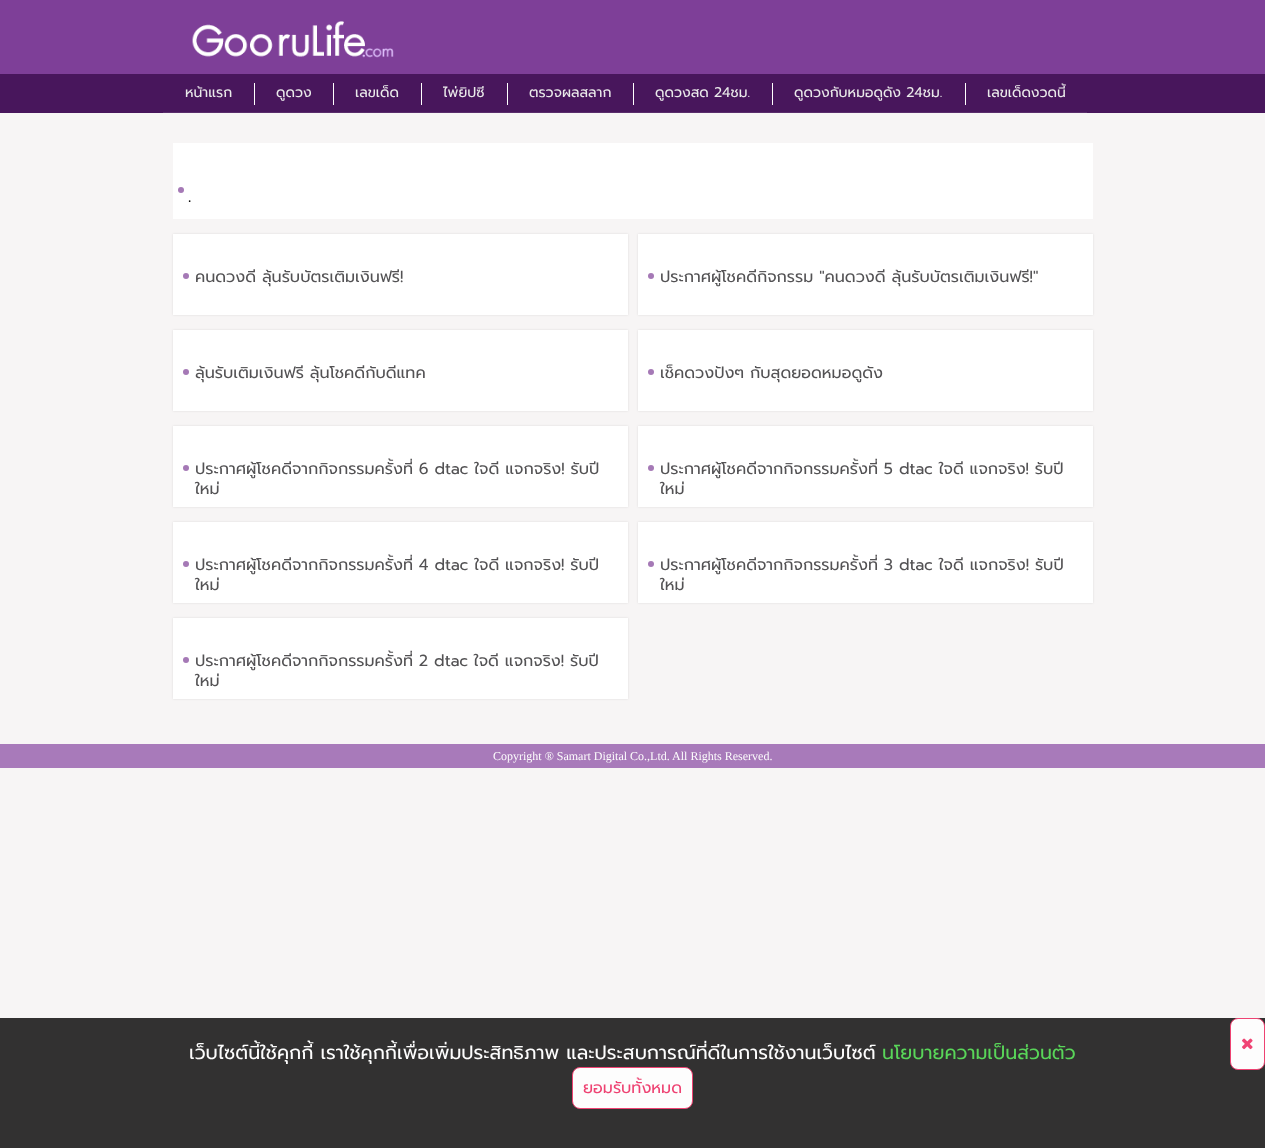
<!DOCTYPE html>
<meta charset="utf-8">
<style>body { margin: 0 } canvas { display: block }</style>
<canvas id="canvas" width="1265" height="1148"></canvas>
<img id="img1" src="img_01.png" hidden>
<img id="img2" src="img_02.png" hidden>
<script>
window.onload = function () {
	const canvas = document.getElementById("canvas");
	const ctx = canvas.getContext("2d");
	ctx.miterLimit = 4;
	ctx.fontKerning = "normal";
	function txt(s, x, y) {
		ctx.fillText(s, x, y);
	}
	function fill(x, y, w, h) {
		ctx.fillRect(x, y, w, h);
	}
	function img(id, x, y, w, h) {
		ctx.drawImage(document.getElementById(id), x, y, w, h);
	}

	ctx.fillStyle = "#F7F5F5";
	fill(0, 0, 1265, 1148);
	ctx.fillStyle = "#7E3F98";
	fill(0, 0, 1265, 74);
	ctx.fillStyle = "#48165C";
	fill(0, 74, 1265, 39);
	img("img1", 192, 21, 202, 37);
	ctx.fillStyle = "#5A2D6C";
	fill(163, 112, 924, 1);
	ctx.fillStyle = "#FFFFFF";
	fill(254, 83, 1, 22);
	fill(333, 83, 1, 22);
	fill(421, 83, 1, 22);
	fill(507, 83, 1, 22);
	fill(633, 83, 1, 22);
	fill(772, 83, 1, 22);
	fill(965, 83, 1, 22);
	fill(173, 143, 920, 76);
	ctx.fillStyle = "#A579B6";
	ctx.beginPath();
	ctx.arc(181, 190, 3, 0, Math.PI * 2);
	ctx.fill();
	ctx.fillStyle = "rgba(0, 0, 0, 0.1)";
	ctx.filter = "blur(1px)";
	ctx.beginPath();
	ctx.rect(173, 234, 455, 81);
	ctx.fill();
	ctx.filter = "none";
	ctx.fillStyle = "#FFFFFF";
	fill(173, 234, 455, 81);
	ctx.fillStyle = "#A579B6";
	ctx.beginPath();
	ctx.arc(186, 276, 3, 0, Math.PI * 2);
	ctx.fill();
	ctx.fillStyle = "rgba(0, 0, 0, 0.1)";
	ctx.filter = "blur(1px)";
	ctx.beginPath();
	ctx.rect(638, 234, 455, 81);
	ctx.fill();
	ctx.filter = "none";
	ctx.fillStyle = "#FFFFFF";
	fill(638, 234, 455, 81);
	ctx.fillStyle = "#A579B6";
	ctx.beginPath();
	ctx.arc(651, 276, 3, 0, Math.PI * 2);
	ctx.fill();
	ctx.fillStyle = "rgba(0, 0, 0, 0.1)";
	ctx.filter = "blur(1px)";
	ctx.beginPath();
	ctx.rect(173, 330, 455, 81);
	ctx.fill();
	ctx.filter = "none";
	ctx.fillStyle = "#FFFFFF";
	fill(173, 330, 455, 81);
	ctx.fillStyle = "#A579B6";
	ctx.beginPath();
	ctx.arc(186, 372, 3, 0, Math.PI * 2);
	ctx.fill();
	ctx.fillStyle = "rgba(0, 0, 0, 0.1)";
	ctx.filter = "blur(1px)";
	ctx.beginPath();
	ctx.rect(638, 330, 455, 81);
	ctx.fill();
	ctx.filter = "none";
	ctx.fillStyle = "#FFFFFF";
	fill(638, 330, 455, 81);
	ctx.fillStyle = "#A579B6";
	ctx.beginPath();
	ctx.arc(651, 372, 3, 0, Math.PI * 2);
	ctx.fill();
	ctx.fillStyle = "rgba(0, 0, 0, 0.1)";
	ctx.filter = "blur(1px)";
	ctx.beginPath();
	ctx.rect(173, 426, 455, 81);
	ctx.fill();
	ctx.filter = "none";
	ctx.fillStyle = "#FFFFFF";
	fill(173, 426, 455, 81);
	ctx.fillStyle = "#A579B6";
	ctx.beginPath();
	ctx.arc(186, 468, 3, 0, Math.PI * 2);
	ctx.fill();
	ctx.fillStyle = "rgba(0, 0, 0, 0.1)";
	ctx.filter = "blur(1px)";
	ctx.beginPath();
	ctx.rect(638, 426, 455, 81);
	ctx.fill();
	ctx.filter = "none";
	ctx.fillStyle = "#FFFFFF";
	fill(638, 426, 455, 81);
	ctx.fillStyle = "#A579B6";
	ctx.beginPath();
	ctx.arc(651, 468, 3, 0, Math.PI * 2);
	ctx.fill();
	ctx.fillStyle = "rgba(0, 0, 0, 0.1)";
	ctx.filter = "blur(1px)";
	ctx.beginPath();
	ctx.rect(173, 522, 455, 81);
	ctx.fill();
	ctx.filter = "none";
	ctx.fillStyle = "#FFFFFF";
	fill(173, 522, 455, 81);
	ctx.fillStyle = "#A579B6";
	ctx.beginPath();
	ctx.arc(186, 564, 3, 0, Math.PI * 2);
	ctx.fill();
	ctx.fillStyle = "rgba(0, 0, 0, 0.1)";
	ctx.filter = "blur(1px)";
	ctx.beginPath();
	ctx.rect(638, 522, 455, 81);
	ctx.fill();
	ctx.filter = "none";
	ctx.fillStyle = "#FFFFFF";
	fill(638, 522, 455, 81);
	ctx.fillStyle = "#A579B6";
	ctx.beginPath();
	ctx.arc(651, 564, 3, 0, Math.PI * 2);
	ctx.fill();
	ctx.fillStyle = "rgba(0, 0, 0, 0.1)";
	ctx.filter = "blur(1px)";
	ctx.beginPath();
	ctx.rect(173, 618, 455, 81);
	ctx.fill();
	ctx.filter = "none";
	ctx.fillStyle = "#FFFFFF";
	fill(173, 618, 455, 81);
	ctx.fillStyle = "#A579B6";
	ctx.beginPath();
	ctx.arc(186, 660, 3, 0, Math.PI * 2);
	ctx.fill();
	ctx.fillStyle = "#323131";
	fill(0, 1018, 1265, 130);
	ctx.fillStyle = "#FDFDFD";
	ctx.beginPath();
	ctx.roundRect(572.5, 1067.5, 120, 41, 7.5);
	ctx.fill();
	ctx.strokeStyle = "#EE4272";
	ctx.stroke();
	ctx.beginPath();
	ctx.roundRect(1230.5, 1018.5, 34, 51, 7.5);
	ctx.fill();
	ctx.stroke();
	img("img2", 1242, 1038, 11, 12);
	ctx.fillStyle = "#A87ABA";
	fill(0, 744, 1265, 24);
	ctx.font = "14px Prompt";
	ctx.fillStyle = "#EAEAEA";
	txt("หน้าแรก", 185, 97);
	txt("ดูดวง", 276, 97);
	txt("เลขเด็ด", 355, 97);
	txt("ไพ่ยิปซี", 443, 97);
	txt("ตรวจผลสลาก", 529, 97);
	txt("ดูดวงสด 24ชม.", 655, 97);
	txt("ดูดวงกับหมอดูดัง 24ชม.", 794, 97);
	txt("เลขเด็ดงวดนี้", 987, 97);
	ctx.font = "18px Prompt";
	ctx.fillStyle = "#000000";
	txt(".", 188, 202);
	ctx.font = "16px Prompt";
	ctx.fillStyle = "#535254";
	txt("คนดวงดี ลุ้นรับบัตรเติมเงินฟรี!", 195, 282);
	txt("ประกาศผู้โชคดีกิจกรรม \"คนดวงดี ลุ้นรับบัตรเติมเงินฟรี!\"", 660, 282);
	ctx.save();
	ctx.beginPath();
	ctx.rect(195, 361, 423, 40);
	ctx.clip();
	txt("ลุ้นรับเติมเงินฟรี ลุ้นโชคดีกับดีแทค", 195, 378);
	ctx.restore();
	ctx.save();
	ctx.beginPath();
	ctx.rect(660, 361, 423, 40);
	ctx.clip();
	txt("เช็คดวงปังๆ กับสุดยอดหมอดูดัง", 660, 378);
	ctx.restore();
	txt("ประกาศผู้โชคดีจากกิจกรรมครั้งที่ 6 dtac ใจดี แจกจริง! รับปี", 195, 474);
	txt("ใหม่", 195, 494);
	txt("ประกาศผู้โชคดีจากกิจกรรมครั้งที่ 5 dtac ใจดี แจกจริง! รับปี", 660, 474);
	txt("ใหม่", 660, 494);
	txt("ประกาศผู้โชคดีจากกิจกรรมครั้งที่ 4 dtac ใจดี แจกจริง! รับปี", 195, 570);
	txt("ใหม่", 195, 590);
	txt("ประกาศผู้โชคดีจากกิจกรรมครั้งที่ 3 dtac ใจดี แจกจริง! รับปี", 660, 570);
	txt("ใหม่", 660, 590);
	txt("ประกาศผู้โชคดีจากกิจกรรมครั้งที่ 2 dtac ใจดี แจกจริง! รับปี", 195, 666);
	txt("ใหม่", 195, 686);
	ctx.font = "19px Prompt";
	ctx.fillStyle = "#FDFDFD";
	txt("เว็บไซต์นี้ใช้คุกกี้ เราใช้คุกกี้เพื่อเพิ่มประสิทธิภาพ และประสบการณ์ที่ดีในการใช้งานเว็บไซต์", 189, 1059);
	ctx.fillStyle = "#59D559";
	txt("นโยบายความเป็นส่วนตัว", 882, 1059);
	ctx.font = "16px Prompt";
	ctx.fillStyle = "#EE4272";
	txt("ยอมรับทั้งหมด", 583, 1093);
	ctx.font = "12px Liberation Serif";
	ctx.fillStyle = "#FDFDFD";
	txt("Copyright ® Samart Digital Co.,Ltd. All Rights Reserved.", 493, 760);
};
</script>
